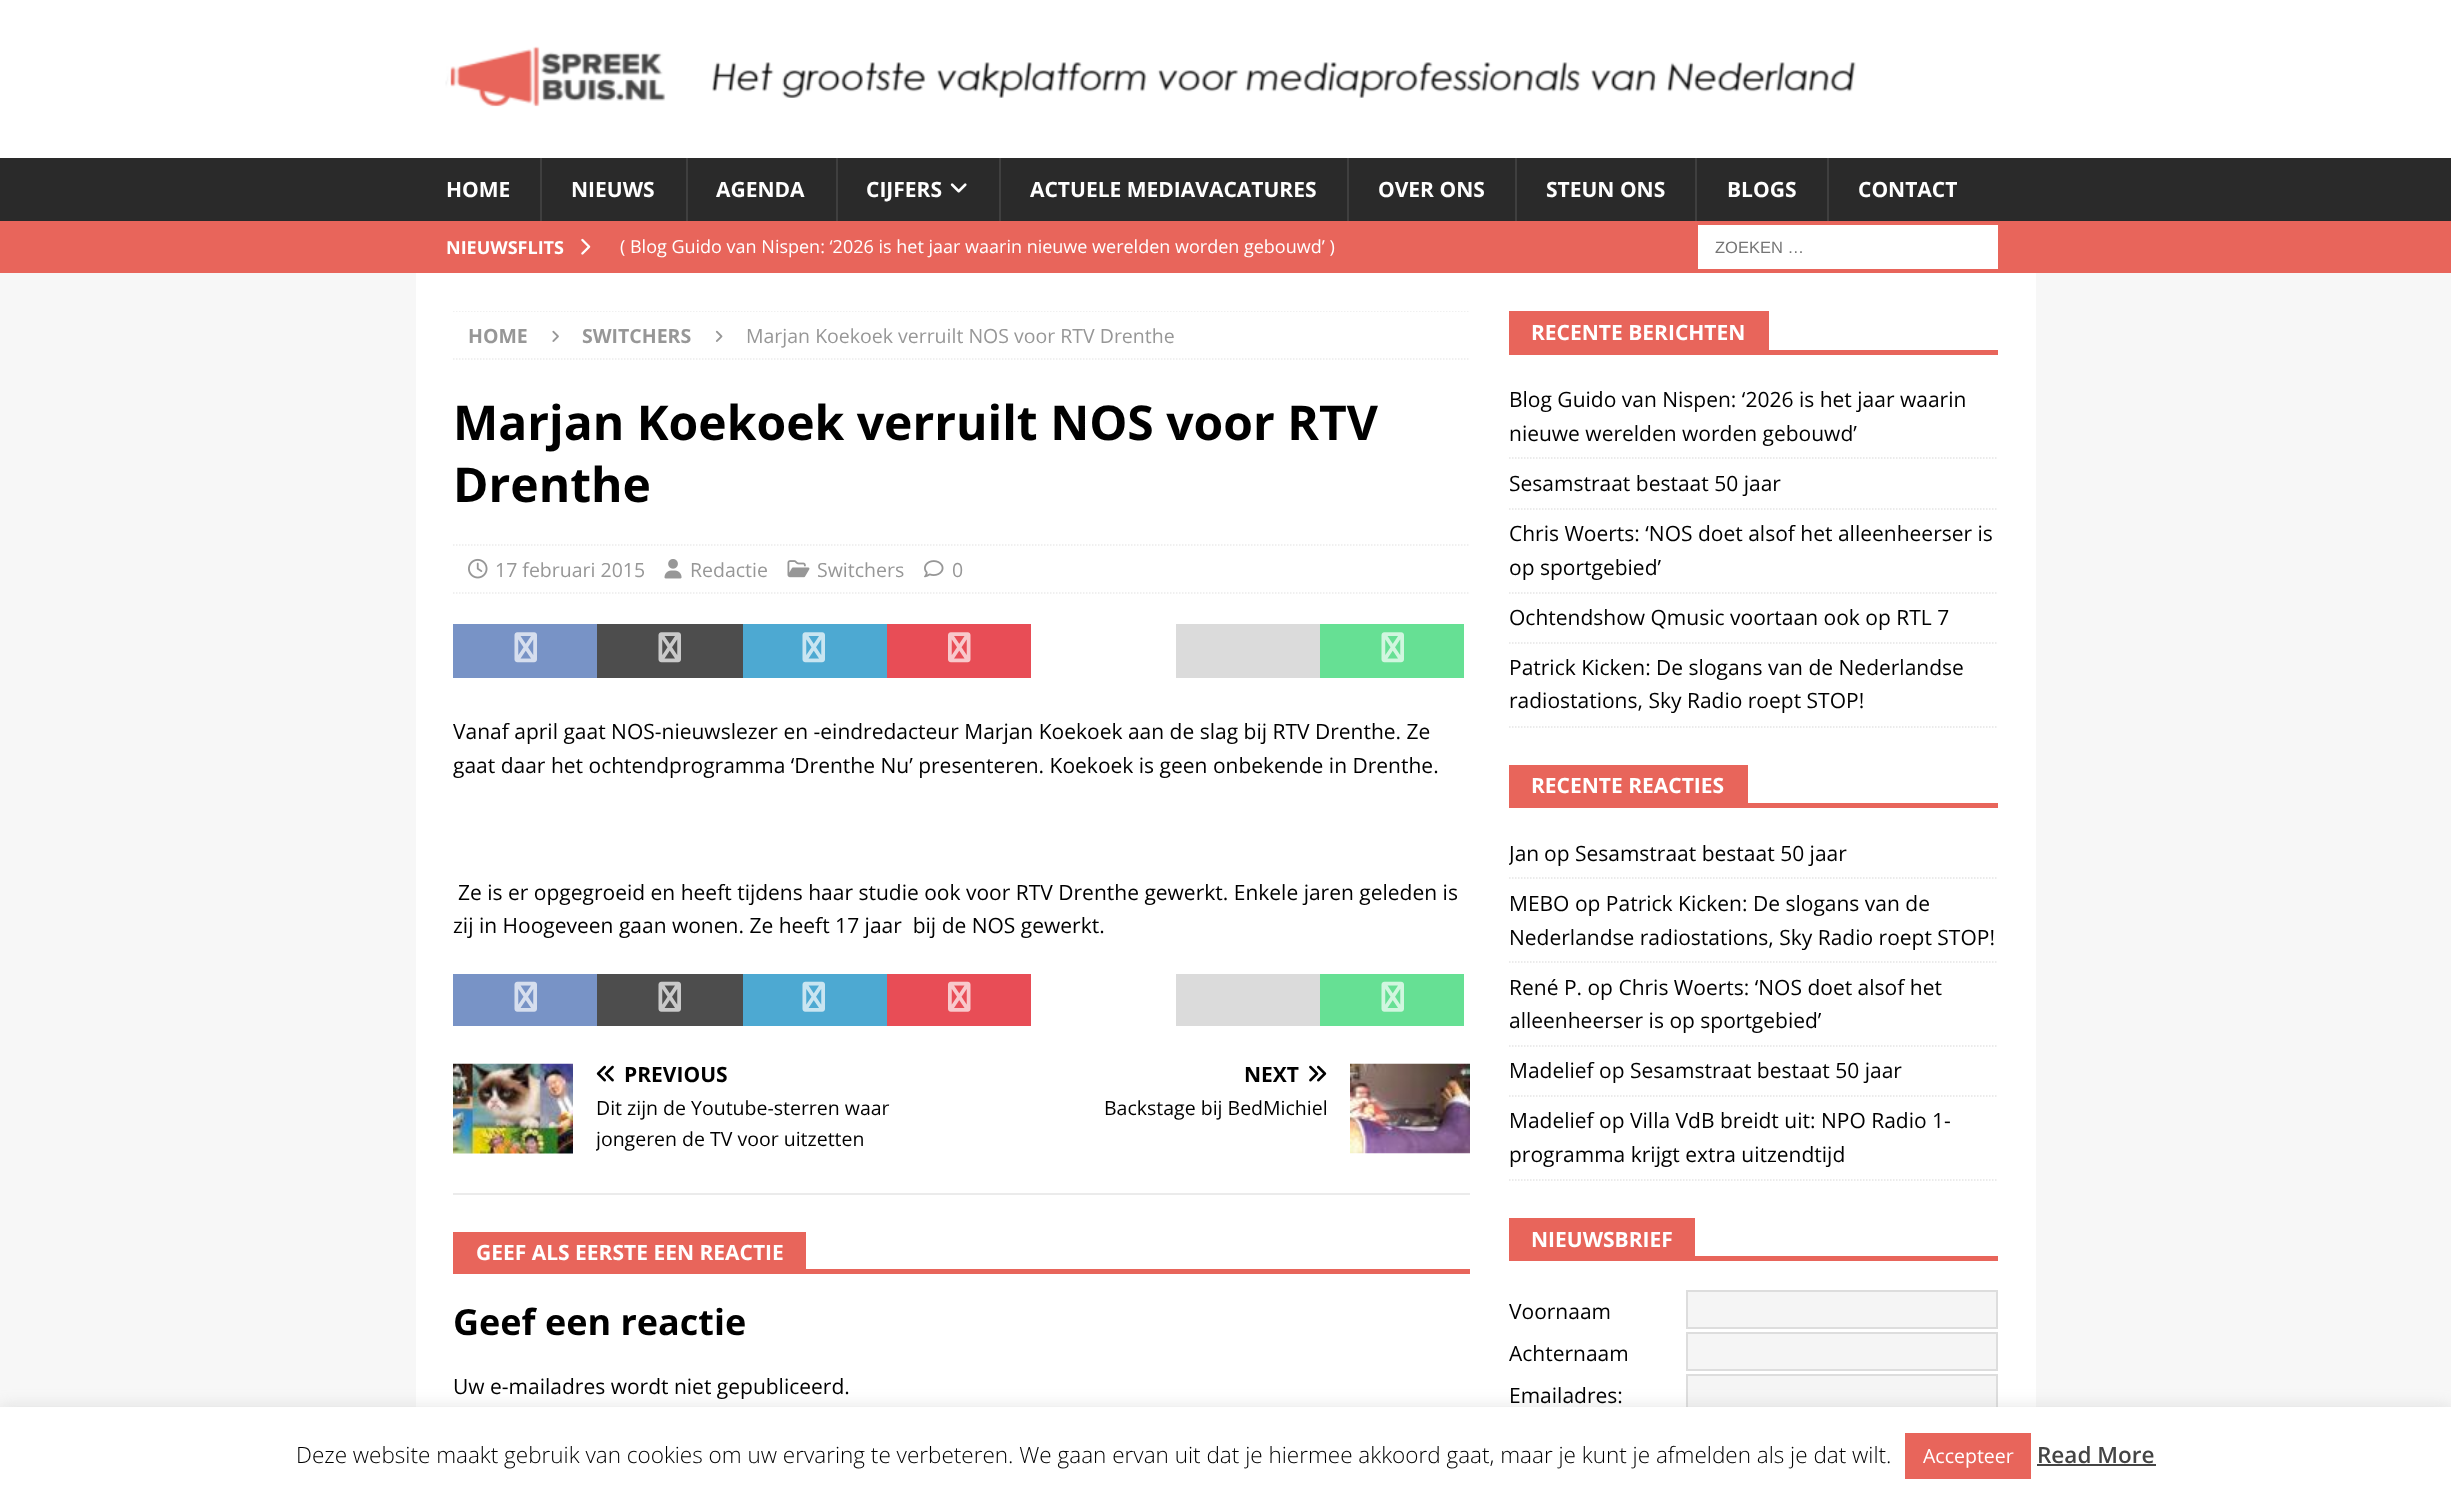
<!DOCTYPE html>
<meta charset="utf-8">
<style>body { margin: 0 } canvas { display: block }</style>
<canvas id="canvas" width="2451" height="1497"></canvas>
<img id="img1" src="img_01.png" hidden>
<img id="img2" src="img_02.png" hidden>
<img id="img3" src="img_03.png" hidden>
<img id="img4" src="img_04.png" hidden>
<img id="img5" src="img_05.png" hidden>
<img id="img6" src="img_06.png" hidden>
<img id="img7" src="img_07.png" hidden>
<img id="img8" src="img_08.png" hidden>
<img id="img9" src="img_09.png" hidden>
<img id="img10" src="img_10.png" hidden>
<img id="img11" src="img_11.png" hidden>
<img id="img12" src="img_12.png" hidden>
<img id="img13" src="img_13.png" hidden>
<img id="img14" src="img_14.png" hidden>
<img id="img15" src="img_15.png" hidden>
<img id="img16" src="img_16.png" hidden>
<img id="img17" src="img_17.png" hidden>
<img id="img18" src="img_18.png" hidden>
<img id="img19" src="img_19.png" hidden>
<img id="img20" src="img_20.png" hidden>
<img id="img21" src="img_21.png" hidden>
<img id="img22" src="img_22.png" hidden>
<img id="img23" src="img_23.png" hidden>
<script>
window.onload = function () {
	const canvas = document.getElementById("canvas");
	const ctx = canvas.getContext("2d");
	ctx.miterLimit = 4;
	ctx.fontKerning = "normal";
	function txt(s, x, y) {
		ctx.fillText(s, x, y);
	}
	function fill(x, y, w, h) {
		ctx.fillRect(x, y, w, h);
	}
	function img(id, x, y, w, h) {
		ctx.drawImage(document.getElementById(id), x, y, w, h);
	}

	ctx.fillStyle = "#F7F7F7";
	fill(0, 0, 2451, 1497);
	ctx.fillStyle = "#FFFFFF";
	fill(0, 0, 2451, 158);
	img("img1", 445, 46, 1411, 61);
	ctx.fillStyle = "#2A2A2A";
	fill(0, 158, 2451, 63);
	ctx.fillStyle = "#3F3F3F";
	fill(540, 158, 2, 63);
	fill(686, 158, 2, 63);
	fill(836, 158, 2, 63);
	img("img2", 950, 183, 17, 10);
	fill(999, 158, 2, 63);
	fill(1347, 158, 2, 63);
	fill(1515, 158, 2, 63);
	fill(1695, 158, 2, 63);
	fill(1827, 158, 2, 63);
	ctx.fillStyle = "#E8655B";
	fill(0, 221, 2451, 52);
	img("img3", 581, 238, 10, 17);
	ctx.fillStyle = "#FFFFFF";
	fill(1698, 225, 300, 44);
	fill(416, 273, 1620, 1134);
	ctx.save();
	ctx.beginPath();
	ctx.rect(453, 311, 1017, 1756);
	ctx.clip();
	ctx.beginPath();
	ctx.moveTo(453, 311);
	ctx.lineTo(1470, 311);
	ctx.strokeStyle = "#EBEBEB";
	ctx.lineWidth = 1.5;
	ctx.setLineDash([1.5, 1.5]);
	ctx.stroke();
	ctx.restore();
	ctx.beginPath();
	ctx.moveTo(453, 359);
	ctx.lineTo(1470, 359);
	ctx.strokeStyle = "#EBEBEB";
	ctx.lineWidth = 1.5;
	ctx.setLineDash([1.5, 1.5]);
	ctx.stroke();
	img("img4", 552, 330, 7, 12);
	img("img5", 715, 330, 8, 12);
	ctx.beginPath();
	ctx.moveTo(453, 545);
	ctx.lineTo(1470, 545);
	ctx.stroke();
	ctx.beginPath();
	ctx.moveTo(453, 593);
	ctx.lineTo(1470, 593);
	ctx.stroke();
	img("img6", 468, 558, 20, 21);
	img("img7", 664, 559, 18, 20);
	img("img8", 787, 560, 23, 18);
	img("img9", 924, 560, 20, 18);
	ctx.fillStyle = "#7893C6";
	fill(453, 624, 144, 54);
	img("img10", 514, 632, 23, 31);
	ctx.fillStyle = "#4D4D4D";
	fill(597, 624, 146, 54);
	img("img11", 658, 632, 23, 31);
	ctx.fillStyle = "#4DA9D2";
	fill(743, 624, 144, 54);
	img("img12", 802, 632, 23, 31);
	ctx.fillStyle = "#E84D56";
	fill(887, 624, 144, 54);
	img("img13", 948, 632, 23, 31);
	ctx.fillStyle = "#DBDBDB";
	fill(1176, 624, 144, 54);
	ctx.fillStyle = "#66E094";
	fill(1320, 624, 144, 54);
	img("img14", 1381, 632, 23, 31);
	ctx.fillStyle = "#7893C6";
	fill(453, 974, 144, 52);
	img("img15", 514, 981, 23, 31);
	ctx.fillStyle = "#4D4D4D";
	fill(597, 974, 146, 52);
	img("img16", 658, 981, 23, 31);
	ctx.fillStyle = "#4DA9D2";
	fill(743, 974, 144, 52);
	img("img17", 802, 981, 23, 31);
	ctx.fillStyle = "#E84D56";
	fill(887, 974, 144, 52);
	img("img18", 948, 981, 23, 31);
	ctx.fillStyle = "#DBDBDB";
	fill(1176, 974, 144, 52);
	ctx.fillStyle = "#66E094";
	fill(1320, 974, 144, 52);
	img("img19", 1381, 981, 23, 31);
	ctx.fillStyle = "#EBEBEB";
	fill(453, 1193, 1017, 2);
	img("img20", 453, 1063, 120, 91);
	img("img21", 596, 1065, 18, 17);
	img("img22", 1309, 1065, 18, 17);
	img("img23", 1350, 1063, 120, 91);
	ctx.fillStyle = "#E8655B";
	fill(453, 1269, 1017, 5);
	fill(453, 1232, 353, 37);
	fill(1509, 350, 489, 5);
	fill(1509, 311, 260, 39);
	ctx.beginPath();
	ctx.moveTo(1509, 458);
	ctx.lineTo(1998, 458);
	ctx.strokeStyle = "#E5E5E5";
	ctx.stroke();
	ctx.beginPath();
	ctx.moveTo(1509, 509);
	ctx.lineTo(1998, 509);
	ctx.stroke();
	ctx.beginPath();
	ctx.moveTo(1509, 593);
	ctx.lineTo(1998, 593);
	ctx.stroke();
	ctx.beginPath();
	ctx.moveTo(1509, 643);
	ctx.lineTo(1998, 643);
	ctx.stroke();
	ctx.beginPath();
	ctx.moveTo(1509, 727);
	ctx.lineTo(1998, 727);
	ctx.stroke();
	fill(1509, 803, 489, 5);
	fill(1509, 765, 239, 38);
	ctx.beginPath();
	ctx.moveTo(1509, 878);
	ctx.lineTo(1998, 878);
	ctx.stroke();
	ctx.beginPath();
	ctx.moveTo(1509, 962);
	ctx.lineTo(1998, 962);
	ctx.stroke();
	ctx.beginPath();
	ctx.moveTo(1509, 1046);
	ctx.lineTo(1998, 1046);
	ctx.stroke();
	ctx.beginPath();
	ctx.moveTo(1509, 1096);
	ctx.lineTo(1998, 1096);
	ctx.stroke();
	ctx.beginPath();
	ctx.moveTo(1509, 1180);
	ctx.lineTo(1998, 1180);
	ctx.stroke();
	fill(1509, 1256, 489, 5);
	fill(1509, 1218, 186, 38);
	ctx.fillStyle = "#F5F5F5";
	ctx.beginPath();
	ctx.rect(1687, 1291, 310, 37);
	ctx.fill();
	ctx.strokeStyle = "#DDDDDD";
	ctx.lineWidth = 2;
	ctx.setLineDash([]);
	ctx.stroke();
	ctx.beginPath();
	ctx.rect(1687, 1333, 310, 37);
	ctx.fill();
	ctx.stroke();
	fill(1688, 1376, 308, 31);
	ctx.strokeRect(1687, 1375, 310, 37);
	ctx.fillStyle = "rgba(172, 171, 171, 0.3)";
	ctx.filter = "blur(7.5px)";
	ctx.beginPath();
	ctx.rect(0, 1406, 2451, 90);
	ctx.fill();
	ctx.filter = "none";
	ctx.fillStyle = "#FFFFFF";
	fill(0, 1407, 2451, 90);
	ctx.fillStyle = "#E8655B";
	fill(1905, 1433, 126, 46);
	ctx.fillStyle = "#444444";
	fill(2037, 1464, 119, 2);
	ctx.font = "bold 21px Open Sans";
	ctx.fillStyle = "#FFFFFF";
	txt("HOME", 446, 197);
	txt("NIEUWS", 571, 197);
	txt("AGENDA", 716, 197);
	txt("CIJFERS", 866, 197);
	txt("ACTUELE MEDIAVACATURES", 1030, 197);
	txt("OVER ONS", 1378, 197);
	txt("STEUN ONS", 1546, 197);
	txt("BLOGS", 1727, 197);
	txt("CONTACT", 1858, 197);
	ctx.font = "bold 18px Open Sans";
	txt("NIEUWSFLITS", 446, 254);
	ctx.font = "18px Open Sans";
	txt("( Blog Guido van Nispen: ‘2026 is het jaar waarin nieuwe werelden worden gebouwd’ )", 620, 253);
	ctx.font = "16.5px Liberation Sans";
	ctx.fillStyle = "#757575";
	txt("ZOEKEN …", 1715, 253);
	ctx.font = "bold 19.5px Open Sans";
	ctx.fillStyle = "#979797";
	txt("HOME", 468, 343);
	txt("SWITCHERS", 582, 343);
	ctx.font = "19.5px Open Sans";
	txt("Marjan Koekoek verruilt NOS voor RTV Drenthe", 746, 343);
	ctx.font = "bold 48px Open Sans";
	ctx.fillStyle = "#000000";
	txt("Marjan Koekoek verruilt NOS voor RTV", 453, 440);
	txt("Drenthe", 453, 502);
	ctx.font = "19.5px Open Sans";
	ctx.fillStyle = "#979797";
	txt("17 februari 2015", 495, 577);
	txt("Redactie", 690, 577);
	txt("Switchers", 817, 577);
	txt("0", 952, 577);
	ctx.font = "21px Open Sans";
	ctx.fillStyle = "#000000";
	txt("Vanaf april gaat NOS-nieuwslezer en -eindredacteur Marjan Koekoek aan de slag bij RTV Drenthe. Ze", 453, 739);
	txt("gaat daar het ochtendprogramma ‘Drenthe Nu’ presenteren. Koekoek is geen onbekende in Drenthe.", 453, 773);
	txt("Ze is er opgegroeid en heeft tijdens haar studie ook voor RTV Drenthe gewerkt. Enkele jaren geleden is", 458, 900);
	txt("zij in Hoogeveen gaan wonen. Ze heeft 17 jaar  bij de NOS gewerkt.", 453, 933);
	ctx.font = "bold 21px Open Sans";
	txt("PREVIOUS", 624, 1082);
	ctx.font = "19.5px Open Sans";
	txt("Dit zijn de Youtube-sterren waar", 596, 1115);
	ctx.save();
	ctx.beginPath();
	ctx.rect(596, 1092, 354, 63);
	ctx.clip();
	txt("jongeren de TV voor uitzetten", 596, 1146);
	ctx.restore();
	ctx.font = "bold 21px Open Sans";
	txt("NEXT", 1244, 1082);
	ctx.font = "19.5px Open Sans";
	txt("Backstage bij BedMichiel", 1104, 1115);
	ctx.font = "bold 21px Open Sans";
	ctx.fillStyle = "#FFFFFF";
	txt("GEEF ALS EERSTE EEN REACTIE", 476, 1260);
	ctx.font = "bold 36px Open Sans";
	ctx.fillStyle = "#000000";
	txt("Geef een reactie", 453, 1335);
	ctx.font = "21px Open Sans";
	txt("Uw e-mailadres wordt niet gepubliceerd.", 453, 1394);
	ctx.font = "bold 21px Open Sans";
	ctx.fillStyle = "#FFFFFF";
	txt("RECENTE BERICHTEN", 1531, 340);
	ctx.font = "21px Open Sans";
	ctx.fillStyle = "#000000";
	txt("Blog Guido van Nispen: ‘2026 is het jaar waarin", 1509, 407);
	txt("nieuwe werelden worden gebouwd’", 1509, 441);
	txt("Sesamstraat bestaat 50 jaar", 1509, 491);
	txt("Chris Woerts: ‘NOS doet alsof het alleenheerser is", 1509, 541);
	txt("op sportgebied’", 1509, 575);
	txt("Ochtendshow Qmusic voortaan ook op RTL 7", 1509, 625);
	txt("Patrick Kicken: De slogans van de Nederlandse", 1509, 675);
	txt("radiostations, Sky Radio roept STOP!", 1509, 708);
	ctx.font = "bold 21px Open Sans";
	ctx.fillStyle = "#FFFFFF";
	txt("RECENTE REACTIES", 1531, 793);
	ctx.save();
	ctx.beginPath();
	ctx.rect(1509, 765, 489, 416);
	ctx.clip();
	ctx.font = "21px Open Sans";
	ctx.fillStyle = "#000000";
	txt("Jan", 1509, 861);
	ctx.restore();
	ctx.font = "21px Open Sans";
	ctx.fillStyle = "#000000";
	txt("op Sesamstraat bestaat 50 jaar", 1544, 861);
	txt("MEBO op Patrick Kicken: De slogans van de", 1509, 911);
	txt("Nederlandse radiostations, Sky Radio roept STOP!", 1509, 945);
	txt("René P. op Chris Woerts: ‘NOS doet alsof het", 1509, 995);
	txt("alleenheerser is op sportgebied’", 1509, 1028);
	txt("Madelief op Sesamstraat bestaat 50 jaar", 1509, 1078);
	txt("Madelief op Villa VdB breidt uit: NPO Radio 1-", 1509, 1128);
	txt("programma krijgt extra uitzendtijd", 1509, 1162);
	ctx.font = "bold 21px Open Sans";
	ctx.fillStyle = "#FFFFFF";
	txt("NIEUWSBRIEF", 1531, 1247);
	ctx.font = "21px Open Sans";
	ctx.fillStyle = "#000000";
	txt("Voornaam", 1509, 1319);
	txt("Achternaam", 1509, 1361);
	txt("Emailadres:", 1509, 1403);
	ctx.font = "300 22.5px Open Sans";
	txt("Deze website maakt gebruik van cookies om uw ervaring te verbeteren. We gaan ervan uit dat je hiermee akkoord gaat, maar je kunt je afmelden als je dat wilt.", 296, 1463);
	ctx.font = "19.5px Open Sans";
	ctx.fillStyle = "#FFFFFF";
	txt("Accepteer", 1923, 1463);
	ctx.font = "600 22.5px Open Sans";
	ctx.fillStyle = "#444444";
	txt("Read More", 2037, 1463);
};
</script>
